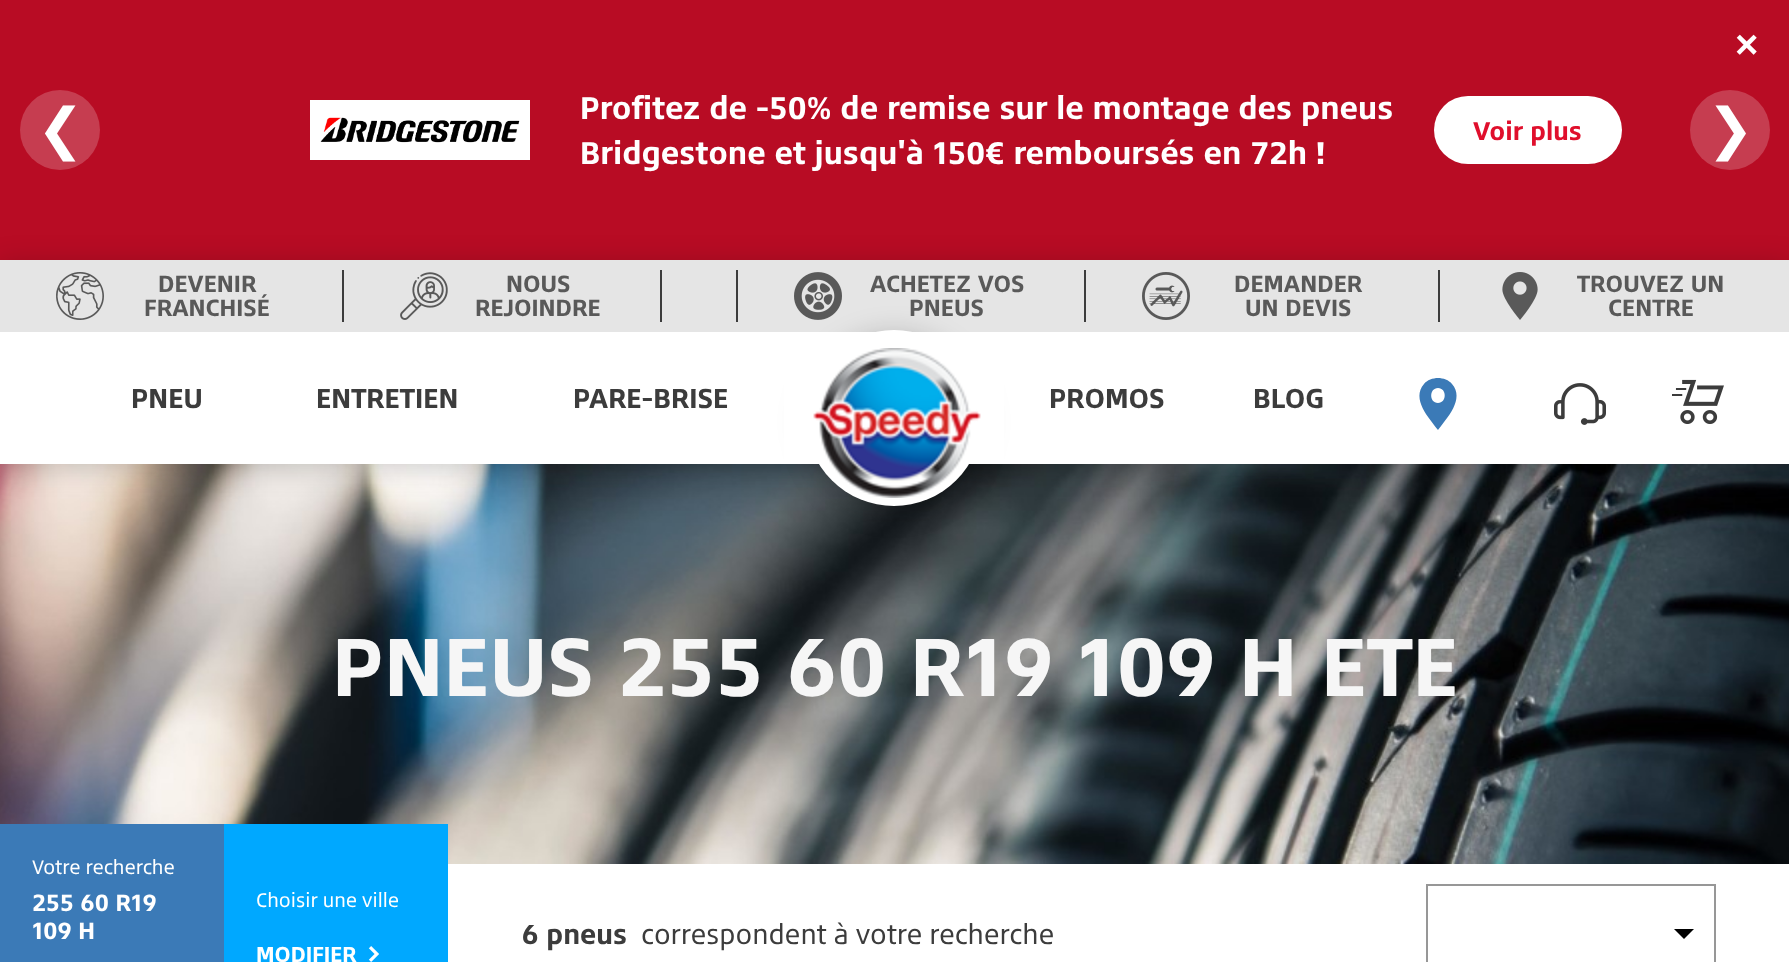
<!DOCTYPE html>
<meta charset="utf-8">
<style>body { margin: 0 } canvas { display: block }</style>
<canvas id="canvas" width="1789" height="962"></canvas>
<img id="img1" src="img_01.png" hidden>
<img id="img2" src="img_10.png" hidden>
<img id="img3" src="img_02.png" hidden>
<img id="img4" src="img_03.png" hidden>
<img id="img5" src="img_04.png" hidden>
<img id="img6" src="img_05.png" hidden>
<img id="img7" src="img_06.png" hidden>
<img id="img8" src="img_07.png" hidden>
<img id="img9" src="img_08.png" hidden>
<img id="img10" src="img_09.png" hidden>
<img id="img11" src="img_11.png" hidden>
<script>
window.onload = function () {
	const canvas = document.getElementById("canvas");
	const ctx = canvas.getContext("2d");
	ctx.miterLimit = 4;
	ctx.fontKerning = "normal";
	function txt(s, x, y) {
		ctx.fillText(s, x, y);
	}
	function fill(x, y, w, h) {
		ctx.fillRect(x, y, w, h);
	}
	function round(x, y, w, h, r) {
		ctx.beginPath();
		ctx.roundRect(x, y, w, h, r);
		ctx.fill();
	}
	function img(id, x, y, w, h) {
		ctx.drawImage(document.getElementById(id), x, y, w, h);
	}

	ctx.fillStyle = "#B80C24";
	fill(0, 0, 1789, 962);
	ctx.fillStyle = "#C63D50";
	ctx.beginPath();
	ctx.arc(60, 130, 40, 0, Math.PI * 2);
	ctx.fill();
	img("img1", 310, 100, 220, 60);
	ctx.fillStyle = "#FFFFFF";
	round(1434, 96, 188, 68, 34);
	ctx.fillStyle = "#C63D50";
	ctx.beginPath();
	ctx.arc(1730, 130, 40, 0, Math.PI * 2);
	ctx.fill();
	img("img2", 0, 464, 1789, 400);
	ctx.fillStyle = "rgba(0, 0, 0, 0.2)";
	ctx.filter = "blur(14px)";
	ctx.beginPath();
	ctx.rect(0, 264, 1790, 204);
	ctx.fill();
	ctx.filter = "none";
	ctx.fillStyle = "#FFFFFF";
	fill(0, 332, 1789, 132);
	ctx.fillStyle = "#E5E5E5";
	fill(0, 260, 1789, 72);
	ctx.fillStyle = "#3C3C3C";
	fill(342, 270, 2, 52);
	img("img3", 56, 272, 48, 48);
	fill(660, 270, 2, 52);
	img("img4", 400, 272, 48, 48);
	fill(736, 270, 2, 52);
	img("img5", 794, 272, 48, 48);
	fill(1084, 270, 2, 52);
	img("img6", 1142, 272, 48, 48);
	fill(1438, 270, 2, 52);
	img("img7", 1502, 272, 36, 48);
	ctx.fillStyle = "rgba(0, 0, 0, 0.2)";
	ctx.filter = "blur(14px)";
	ctx.beginPath();
	ctx.roundRect(806, 334, 176, 176, 88);
	ctx.fill();
	ctx.filter = "none";
	ctx.fillStyle = "#FFFFFF";
	ctx.beginPath();
	ctx.arc(894, 418, 88, 0, Math.PI * 2);
	ctx.fill();
	fill(784, 332, 220, 132);
	img("img8", 813, 348, 168, 150);
	ctx.fillStyle = "#3B7AB7";
	ctx.beginPath();
	ctx.moveTo(1438, 403);
	ctx.bezierCurveTo(1429, 403, 1429, 388, 1438, 388);
	ctx.bezierCurveTo(1447, 388, 1447, 403, 1438, 403);
	ctx.closePath();
	ctx.moveTo(1438, 378);
	ctx.bezierCurveTo(1433, 378, 1427, 380, 1424, 384);
	ctx.bezierCurveTo(1411, 399, 1429, 418, 1438, 430);
	ctx.bezierCurveTo(1447, 418, 1465, 399, 1452, 384);
	ctx.bezierCurveTo(1449, 380, 1443, 378, 1438, 378);
	ctx.closePath();
	ctx.fill();
	img("img9", 1554, 383, 52, 42);
	img("img10", 1672, 379, 52, 45);
	fill(0, 824, 224, 138);
	ctx.fillStyle = "#00A8FF";
	fill(224, 824, 224, 138);
	img("img11", 368, 946, 11, 16);
	ctx.fillStyle = "#FFFFFF";
	fill(448, 864, 1341, 98);
	ctx.strokeStyle = "#979797";
	ctx.lineWidth = 2;
	ctx.strokeRect(1427, 885, 288, 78);
	ctx.fillStyle = "#000000";
	ctx.beginPath();
	ctx.moveTo(1674, 929);
	ctx.lineTo(1694, 929);
	ctx.lineTo(1684, 939);
	ctx.closePath();
	ctx.fill();
	ctx.font = "bold 40px Liberation Sans";
	ctx.fillStyle = "#FFFFFF";
	txt("×", 1735, 58);
	ctx.font = "56px DejaVu Sans";
	txt("❮", 37, 148);
	ctx.font = "bold 32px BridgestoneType";
	txt("Profitez de -50% de remise sur le montage des pneus", 580, 119);
	txt("Bridgestone et jusqu'à 150€ remboursés en 72h !", 580, 164);
	ctx.font = "bold 26px BridgestoneType";
	ctx.fillStyle = "#E00F2C";
	txt("Voir plus", 1473, 140);
	ctx.font = "56px DejaVu Sans";
	ctx.fillStyle = "#FFFFFF";
	txt("❯", 1707, 148);
	ctx.font = "bold 24px BridgestoneType";
	ctx.fillStyle = "#595959";
	txt("DEVENIR", 158, 292);
	txt("FRANCHISÉ", 144, 316);
	txt("NOUS", 506, 292);
	txt("REJOINDRE", 475, 316);
	txt("ACHETEZ VOS", 870, 292);
	txt("PNEUS", 909, 316);
	txt("DEMANDER", 1234, 292);
	txt("UN DEVIS", 1245, 316);
	txt("TROUVEZ UN", 1577, 292);
	txt("CENTRE", 1608, 316);
	ctx.font = "bold 28px BridgestoneType";
	ctx.fillStyle = "#3C3C3C";
	txt("PNEU", 131, 408);
	txt("ENTRETIEN", 316, 408);
	txt("PARE-BRISE", 573, 408);
	txt("PROMOS", 1049, 408);
	txt("BLOG", 1253, 408);
	ctx.font = "bold 84px BridgestoneType";
	ctx.fillStyle = "#F6F6F6";
	txt("PNEUS 255 60 R19 109 H ETE", 332, 696);
	ctx.font = "20px BridgestoneType";
	ctx.fillStyle = "#FFFFFF";
	txt("Votre recherche", 32, 874);
	ctx.font = "bold 24px BridgestoneType";
	txt("255 60 R19", 32, 911);
	txt("109 H", 32, 939);
	ctx.font = "20px BridgestoneType";
	txt("Choisir une ville", 256, 907);
	ctx.font = "bold 22px BridgestoneType";
	txt("MODIFIER", 256, 962);
	ctx.font = "bold 28px BridgestoneType";
	ctx.fillStyle = "#3C3C3C";
	txt("6 pneus", 522, 944);
	ctx.font = "28px BridgestoneType";
	txt("correspondent à votre recherche", 641, 944);
};
</script>
